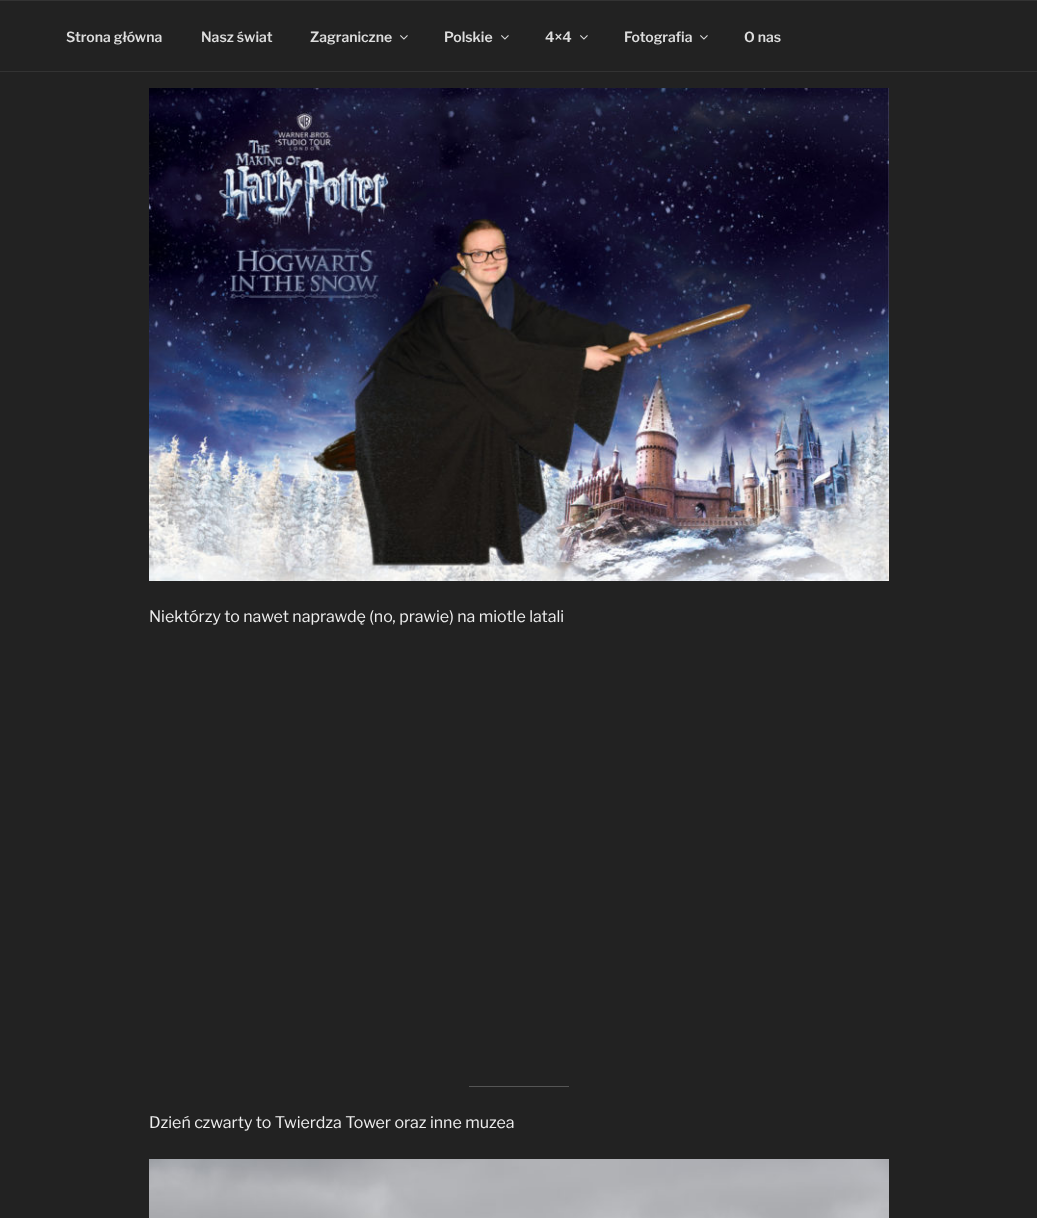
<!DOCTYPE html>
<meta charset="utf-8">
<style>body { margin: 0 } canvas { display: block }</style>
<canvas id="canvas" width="1037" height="1218"></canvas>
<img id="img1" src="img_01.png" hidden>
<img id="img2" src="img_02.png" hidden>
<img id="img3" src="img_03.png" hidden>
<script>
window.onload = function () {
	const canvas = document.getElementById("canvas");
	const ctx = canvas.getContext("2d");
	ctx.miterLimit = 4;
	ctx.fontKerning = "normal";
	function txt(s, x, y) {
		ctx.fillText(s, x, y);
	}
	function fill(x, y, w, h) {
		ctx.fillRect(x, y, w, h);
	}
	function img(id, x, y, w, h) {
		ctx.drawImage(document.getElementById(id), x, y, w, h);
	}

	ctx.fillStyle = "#222222";
	fill(0, 0, 1037, 1218);
	ctx.fillStyle = "#333333";
	fill(0, 0, 1037, 1);
	fill(0, 71, 1037, 1);
	img("img1", 400, 35, 8, 5);
	img("img1", 501, 35, 8, 5);
	img("img1", 580, 35, 8, 5);
	img("img1", 700, 35, 8, 5);
	img("img2", 149, 88, 740, 493);
	ctx.fillStyle = "#555555";
	fill(469, 1086, 100, 1);
	img("img3", 149, 1159, 740, 59);
	ctx.font = "100 14px 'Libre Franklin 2'";
	ctx.fillStyle = "#DDDDDD";
	txt("Strona główna", 66, 42);
	txt("Nasz świat", 201, 42);
	txt("Zagraniczne", 310, 42);
	txt("Polskie", 444, 42);
	txt("4×4", 545, 42);
	txt("Fotografia", 624, 42);
	txt("O nas", 744, 42);
	ctx.font = "100 16px Libre Franklin";
	ctx.fillStyle = "#EEEEEE";
	txt("Niektórzy to nawet naprawdę (no, prawie) na miotle latali", 149, 622);
	txt("Dzień czwarty to Twierdza Tower oraz inne muzea", 149, 1128);
};
</script>
